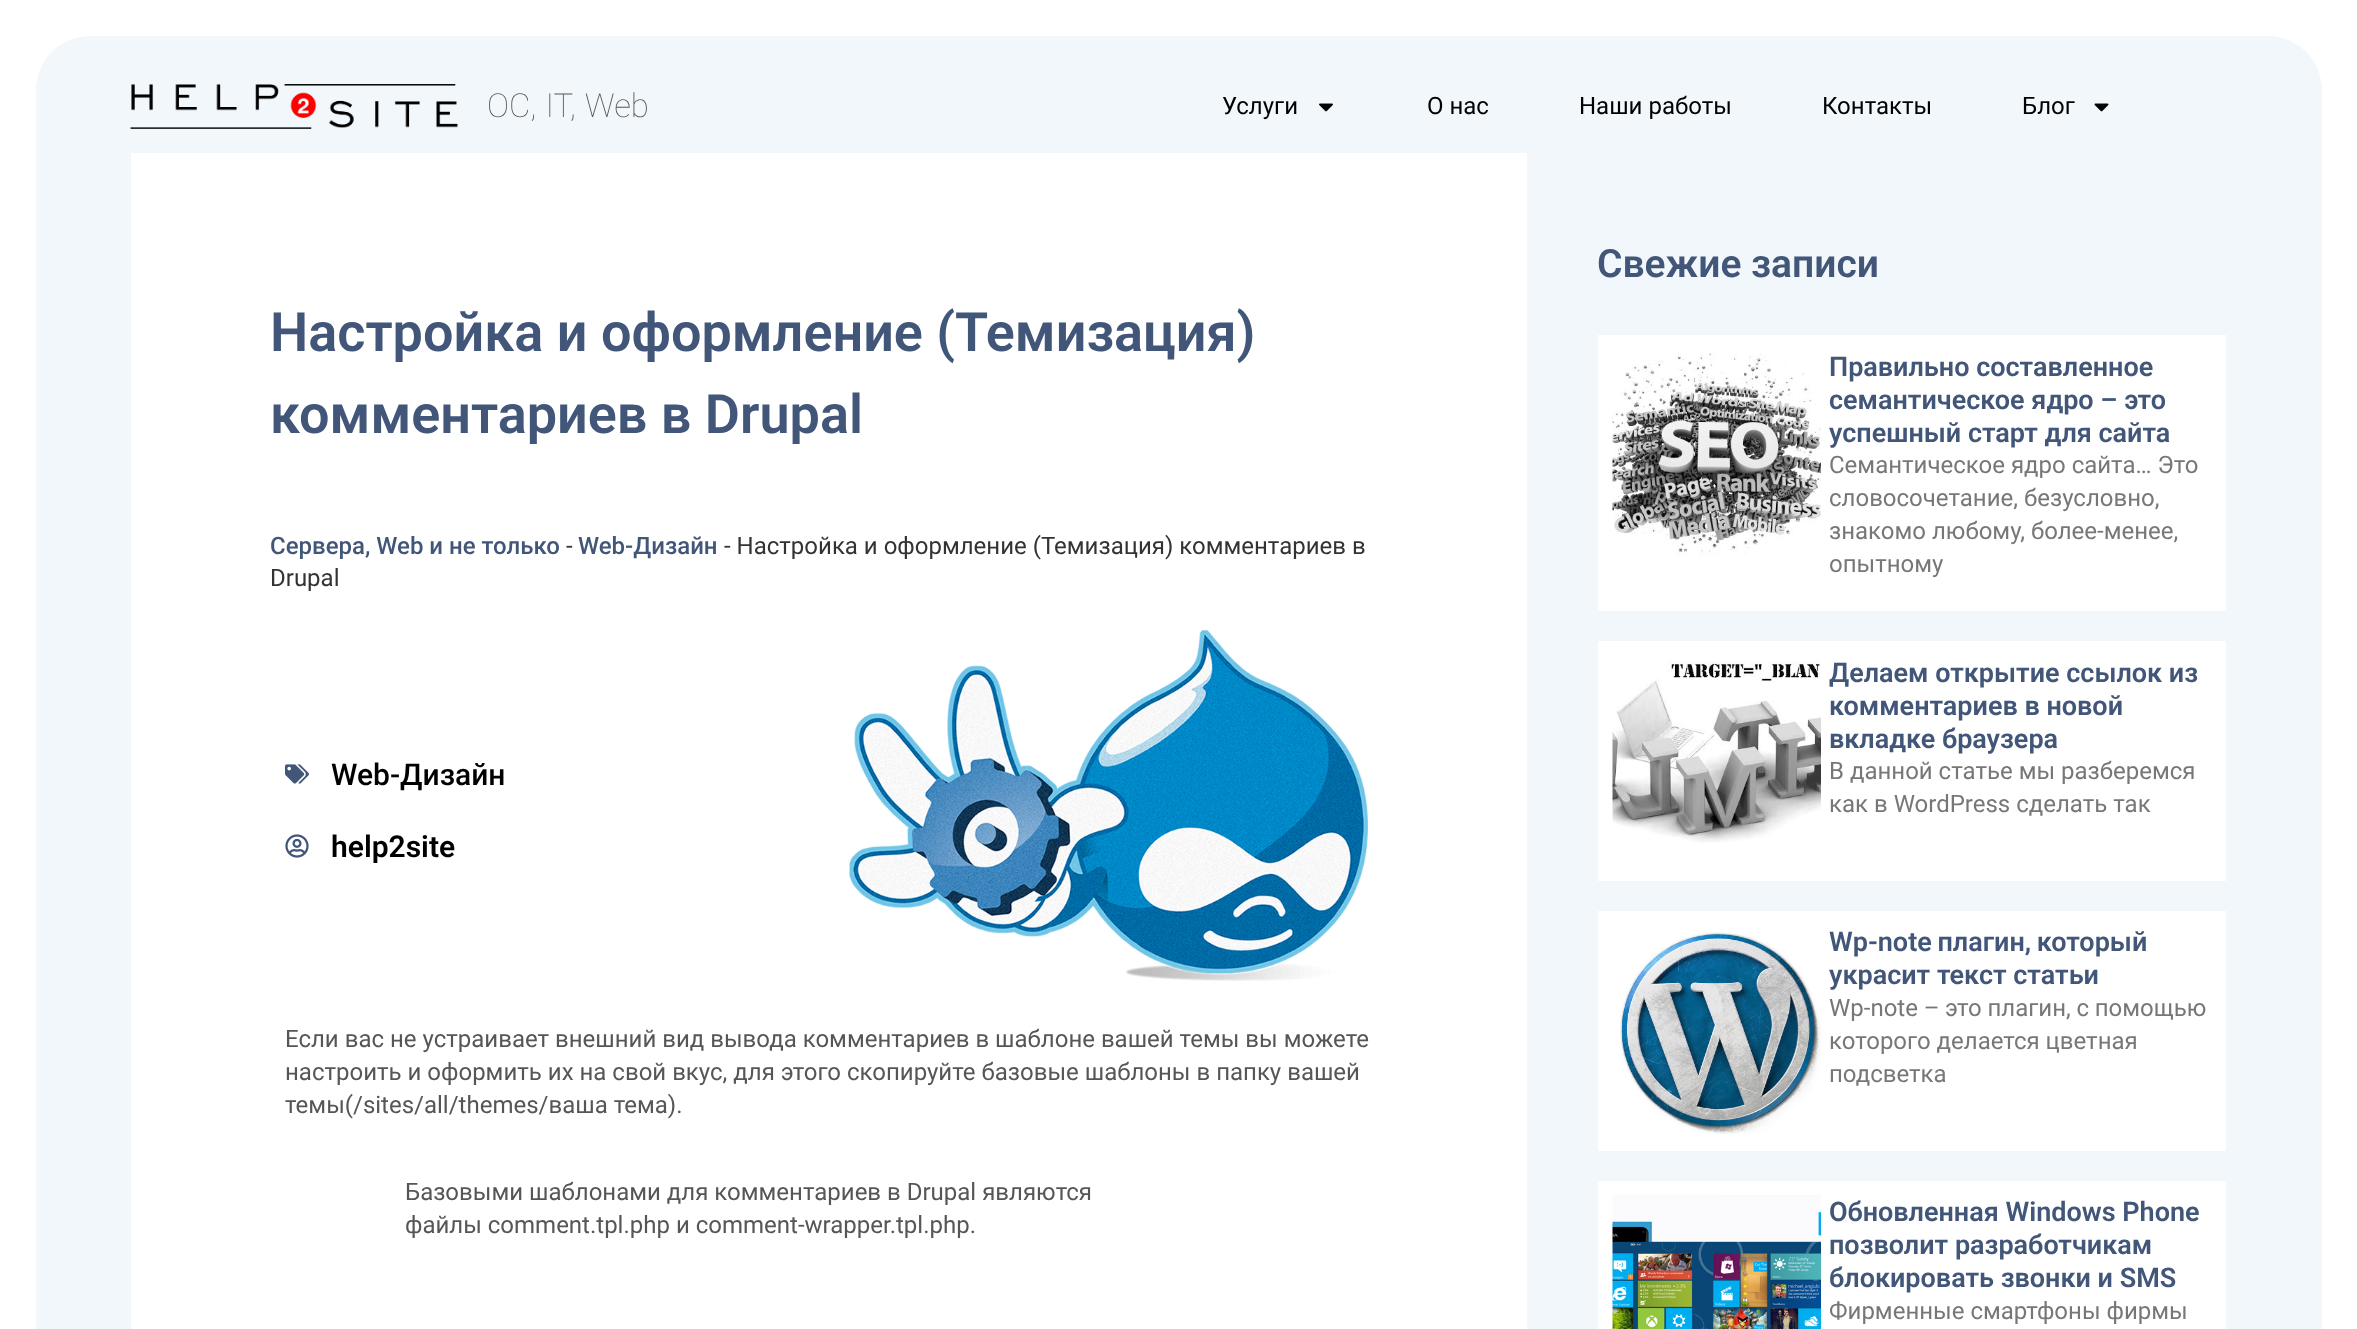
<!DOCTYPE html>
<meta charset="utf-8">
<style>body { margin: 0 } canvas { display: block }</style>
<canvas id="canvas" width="2357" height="1329"></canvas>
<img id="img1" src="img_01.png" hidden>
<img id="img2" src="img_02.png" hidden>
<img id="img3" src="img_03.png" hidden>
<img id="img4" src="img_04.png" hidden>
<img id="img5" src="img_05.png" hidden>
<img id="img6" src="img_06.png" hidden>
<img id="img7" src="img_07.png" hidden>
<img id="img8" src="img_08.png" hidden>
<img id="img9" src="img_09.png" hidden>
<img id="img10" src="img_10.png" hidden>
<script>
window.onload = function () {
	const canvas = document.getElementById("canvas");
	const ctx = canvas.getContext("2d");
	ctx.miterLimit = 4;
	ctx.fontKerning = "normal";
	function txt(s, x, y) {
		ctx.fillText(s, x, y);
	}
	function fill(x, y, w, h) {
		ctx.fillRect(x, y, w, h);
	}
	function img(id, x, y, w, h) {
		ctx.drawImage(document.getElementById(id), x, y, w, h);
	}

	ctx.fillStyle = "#FFFFFF";
	fill(0, 0, 2357, 1329);
	ctx.fillStyle = "#F2F7FB";
	ctx.beginPath();
	ctx.roundRect(36, 36, 2286, 117, [54, 54, 0, 0]);
	ctx.fill();
	ctx.fillStyle = "#FFFFFF";
	ctx.beginPath();
	ctx.moveTo(90, 0);
	ctx.lineTo(2268, 0);
	ctx.bezierCurveTo(2318, 0, 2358, 40, 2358, 90);
	ctx.lineTo(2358, 153);
	ctx.lineTo(0, 153);
	ctx.lineTo(0, 90);
	ctx.bezierCurveTo(0, 40, 40, 0, 90, 0);
	ctx.closePath();
	ctx.moveTo(90, 36);
	ctx.lineTo(2268, 36);
	ctx.bezierCurveTo(2298, 36, 2322, 60, 2322, 90);
	ctx.lineTo(2322, 153);
	ctx.lineTo(36, 153);
	ctx.lineTo(36, 90);
	ctx.bezierCurveTo(36, 60, 60, 36, 90, 36);
	ctx.closePath();
	ctx.fill("evenodd");
	img("img1", 130, 84, 328, 45);
	img("img2", 1319, 103, 14, 9);
	img("img3", 2094, 103, 15, 9);
	ctx.fillStyle = "#F2F7FB";
	fill(36, 153, 2286, 1176);
	ctx.fillStyle = "#FFFFFF";
	fill(131, 153, 1396, 1176);
	img("img4", 285, 764, 24, 20);
	img("img5", 285, 834, 24, 24);
	img("img6", 849, 629, 520, 352);
	fill(1598, 335, 628, 276);
	img("img7", 1612, 353, 209, 203);
	fill(1598, 641, 628, 240);
	img("img8", 1612, 661, 209, 182);
	fill(1598, 911, 628, 240);
	img("img9", 1620, 932, 201, 202);
	fill(1598, 1181, 628, 148);
	img("img10", 1612, 1195, 209, 134);
	ctx.wordSpacing = "1px";
	ctx.font = "100 33px Roboto";
	ctx.fillStyle = "#565656";
	txt("ОС, IT, Web", 487, 117);
	ctx.wordSpacing = "0px";
	ctx.font = "24px Roboto";
	ctx.fillStyle = "#000000";
	txt("Услуги", 1222, 114);
	txt("О нас", 1427, 114);
	txt("Наши работы", 1579, 114);
	txt("Контакты", 1822, 114);
	txt("Блог", 2022, 114);
	ctx.font = "600 54px Roboto";
	ctx.fillStyle = "#415678";
	txt("Настройка и оформление (Темизация)", 270, 351);
	txt("комментариев в Drupal", 270, 433);
	ctx.font = "500 24px Roboto";
	txt("Сервера, Web и не только", 270, 554);
	ctx.font = "24px Roboto";
	ctx.fillStyle = "#333333";
	txt("-", 566, 554);
	ctx.font = "500 24px Roboto";
	ctx.fillStyle = "#415678";
	txt("Web-Дизайн", 578, 554);
	ctx.font = "24px Roboto";
	ctx.fillStyle = "#333333";
	txt("- Настройка и оформление (Темизация) комментариев в", 724, 554);
	txt("Drupal", 270, 586);
	ctx.font = "500 30px Roboto";
	ctx.fillStyle = "#000000";
	txt("Web-Дизайн", 331, 785);
	ctx.font = "600 30px Roboto";
	txt("help2site", 331, 857);
	ctx.font = "24px Roboto";
	ctx.fillStyle = "#565656";
	txt("Если вас не устраивает внешний вид вывода комментариев в шаблоне вашей темы вы можете", 285, 1047);
	txt("настроить и оформить их на свой вкус, для этого скопируйте базовые шаблоны в папку вашей", 285, 1080);
	txt("темы(/sites/all/themes/ваша тема).", 285, 1113);
	txt("Базовыми шаблонами для комментариев в Drupal являются", 405, 1200);
	txt("файлы comment.tpl.php и comment-wrapper.tpl.php.", 405, 1233);
	ctx.font = "600 39px Roboto";
	ctx.fillStyle = "#415678";
	txt("Свежие записи", 1597, 277);
	ctx.font = "600 27px Roboto";
	txt("Правильно составленное", 1829, 376);
	txt("семантическое ядро – это", 1829, 409);
	txt("успешный старт для сайта", 1829, 442);
	ctx.font = "24px Roboto";
	ctx.fillStyle = "#777777";
	txt("Семантическое ядро сайта… Это", 1829, 473);
	txt("словосочетание, безусловно,", 1829, 506);
	txt("знакомо любому, более-менее,", 1829, 539);
	txt("опытному", 1829, 572);
	ctx.font = "600 27px Roboto";
	ctx.fillStyle = "#415678";
	txt("Делаем открытие ссылок из", 1829, 682);
	txt("комментариев в новой", 1829, 715);
	txt("вкладке браузера", 1829, 748);
	ctx.font = "24px Roboto";
	ctx.fillStyle = "#777777";
	txt("В данной статье мы разберемся", 1829, 779);
	txt("как в WordPress сделать так", 1829, 812);
	ctx.wordSpacing = "-1px";
	ctx.font = "600 27px Roboto";
	ctx.fillStyle = "#415678";
	txt("Wp-note плагин, который", 1829, 951);
	ctx.wordSpacing = "0px";
	txt("украсит текст статьи", 1829, 984);
	ctx.wordSpacing = "-0.25px";
	ctx.font = "24px Roboto";
	ctx.fillStyle = "#777777";
	txt("Wp-note – это плагин, с помощью", 1829, 1016);
	ctx.wordSpacing = "0px";
	txt("которого делается цветная", 1829, 1049);
	txt("подсветка", 1829, 1082);
	ctx.font = "600 27px Roboto";
	ctx.fillStyle = "#415678";
	txt("Обновленная Windows Phone", 1829, 1221);
	txt("позволит разработчикам", 1829, 1254);
	txt("блокировать звонки и SMS", 1829, 1287);
	ctx.font = "24px Roboto";
	ctx.fillStyle = "#777777";
	txt("Фирменные смартфоны фирмы", 1829, 1319);
};
</script>
